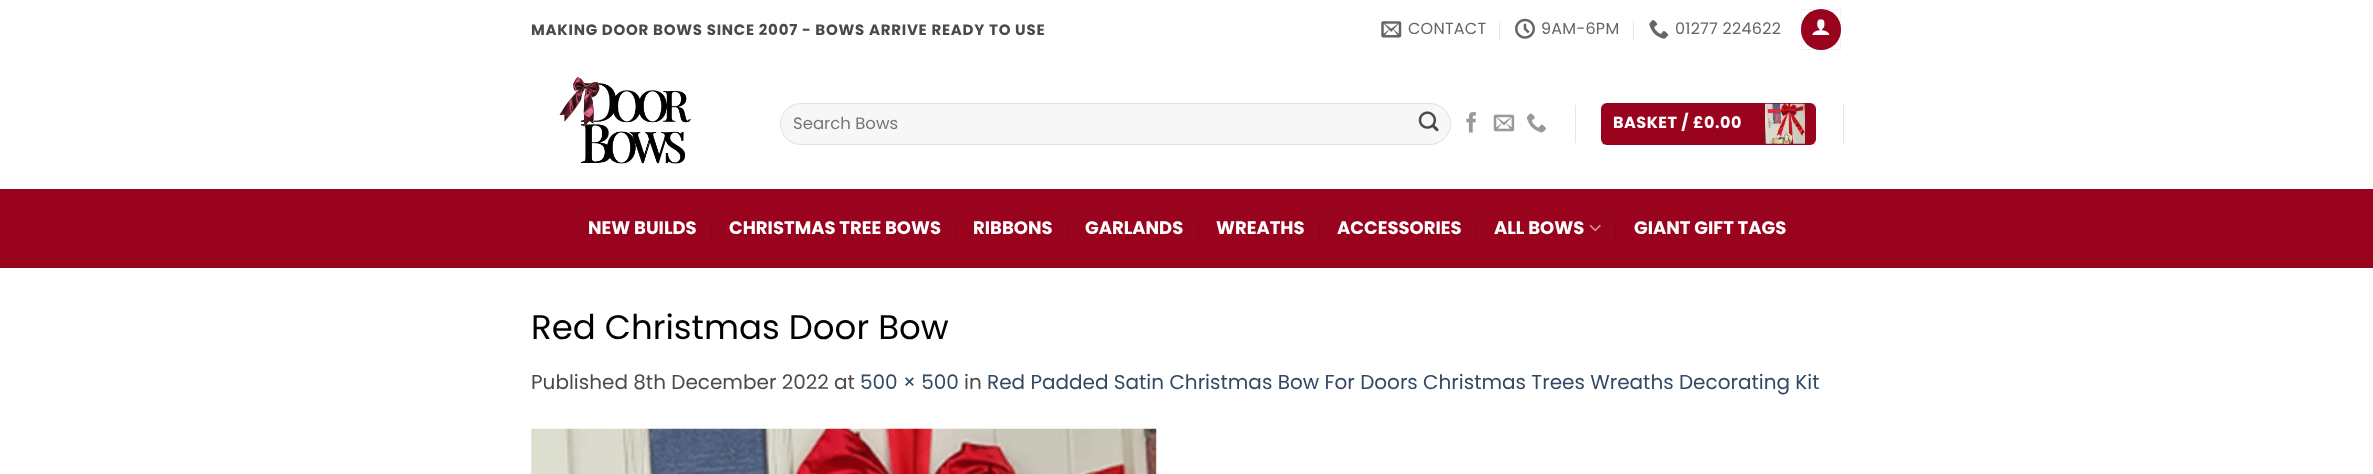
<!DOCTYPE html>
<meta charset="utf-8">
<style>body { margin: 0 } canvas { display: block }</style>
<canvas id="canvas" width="2373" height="474"></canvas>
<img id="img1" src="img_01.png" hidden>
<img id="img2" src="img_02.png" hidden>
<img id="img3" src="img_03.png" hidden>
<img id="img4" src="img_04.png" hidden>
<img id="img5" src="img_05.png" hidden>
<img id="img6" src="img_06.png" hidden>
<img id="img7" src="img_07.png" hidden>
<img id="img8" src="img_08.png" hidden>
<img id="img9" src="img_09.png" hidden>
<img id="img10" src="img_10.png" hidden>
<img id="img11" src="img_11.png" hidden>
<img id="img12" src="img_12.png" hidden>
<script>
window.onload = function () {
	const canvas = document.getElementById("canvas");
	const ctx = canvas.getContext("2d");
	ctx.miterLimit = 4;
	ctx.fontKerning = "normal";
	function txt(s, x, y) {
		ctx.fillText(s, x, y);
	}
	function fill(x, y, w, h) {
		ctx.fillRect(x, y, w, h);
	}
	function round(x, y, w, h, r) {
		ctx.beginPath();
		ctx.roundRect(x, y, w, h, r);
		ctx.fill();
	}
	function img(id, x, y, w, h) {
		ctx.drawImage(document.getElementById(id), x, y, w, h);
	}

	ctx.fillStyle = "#FFFFFF";
	fill(0, 0, 2373, 474);
	img("img1", 1381, 21, 21, 17);
	ctx.fillStyle = "#E6E6E6";
	fill(1499, 21, 1, 19);
	img("img2", 1515, 18, 20, 21);
	fill(1633, 21, 1, 19);
	img("img3", 1649, 20, 20, 19);
	ctx.fillStyle = "#9A031E";
	round(1801, 9, 40, 41, 20);
	ctx.strokeStyle = "rgba(0, 0, 0, 0.05)";
	ctx.strokeRect(1801.5, 9.5, 39, 40);
	img("img4", 1812, 19, 18, 16);
	img("img5", 559, 77, 132, 87);
	ctx.fillStyle = "#F7F7F7";
	round(780, 103, 671, 42, 21);
	ctx.beginPath();
	ctx.roundRect(780.5, 103.5, 670, 41, 20.5);
	ctx.strokeStyle = "rgba(0, 0, 0, 0.09)";
	ctx.stroke();
	img("img6", 1418, 111, 21, 21);
	img("img7", 1466, 112, 10, 21);
	img("img8", 1493, 114, 22, 18);
	img("img9", 1526, 113, 20, 20);
	ctx.fillStyle = "#E6E6E6";
	fill(1575, 105, 1, 38);
	ctx.fillStyle = "#9A031E";
	round(1601, 103, 215, 42, 6);
	ctx.strokeStyle = "rgba(0, 0, 0, 0.05)";
	ctx.strokeRect(1601.5, 103.5, 214, 41);
	img("img10", 1765, 103, 40, 41);
	ctx.fillStyle = "#E6E6E6";
	fill(1843, 105, 1, 38);
	ctx.fillStyle = "#9A031E";
	fill(0, 189, 2373, 79);
	ctx.fillStyle = "#8B031B";
	fill(711, 220, 1, 19);
	fill(955, 220, 1, 19);
	fill(1068, 220, 1, 19);
	fill(1198, 220, 1, 19);
	fill(1319, 220, 1, 19);
	fill(1476, 220, 1, 19);
	img("img11", 1589, 224, 12, 8);
	fill(1615, 220, 1, 19);
	img("img12", 531, 428, 626, 46);
	ctx.letterSpacing = "0.75px";
	ctx.font = "bold 15px Poppins";
	ctx.fillStyle = "#4A4A4A";
	txt("MAKING DOOR BOWS SINCE 2007 - BOWS ARRIVE READY TO USE", 531, 35);
	ctx.letterSpacing = "0.25px";
	ctx.font = "16px Poppins";
	ctx.fillStyle = "#656565";
	txt("CONTACT", 1408, 34);
	txt("9AM-6PM", 1541, 34);
	txt("01277 224622", 1675, 34);
	ctx.letterSpacing = "0px";
	ctx.font = "16.5px Poppins";
	ctx.fillStyle = "#757575";
	txt("Search Bows", 793, 129);
	ctx.letterSpacing = "0.5px";
	ctx.font = "bold 16px Poppins";
	ctx.fillStyle = "#FFFFFF";
	txt("BASKET / £0.00", 1613, 128);
	ctx.letterSpacing = "0px";
	ctx.font = "bold 18px Poppins";
	txt("NEW BUILDS", 588, 234);
	txt("CHRISTMAS TREE BOWS", 729, 234);
	txt("RIBBONS", 973, 234);
	txt("GARLANDS", 1085, 234);
	txt("WREATHS", 1216, 234);
	txt("ACCESSORIES", 1337, 234);
	txt("ALL BOWS", 1494, 234);
	txt("GIANT GIFT TAGS", 1634, 234);
	ctx.font = "34px Poppins";
	ctx.fillStyle = "#000000";
	txt("Red Christmas Door Bow", 531, 339);
	ctx.font = "20px Poppins";
	ctx.fillStyle = "#4A4A4A";
	txt("Published 8th December 2022 at", 531, 389);
	ctx.fillStyle = "#334862";
	txt("500 × 500", 860, 389);
	ctx.fillStyle = "#4A4A4A";
	txt("in", 964, 389);
	ctx.fillStyle = "#334862";
	txt("Red Padded Satin Christmas Bow For Doors Christmas Trees Wreaths Decorating Kit", 987, 389);
};
</script>
